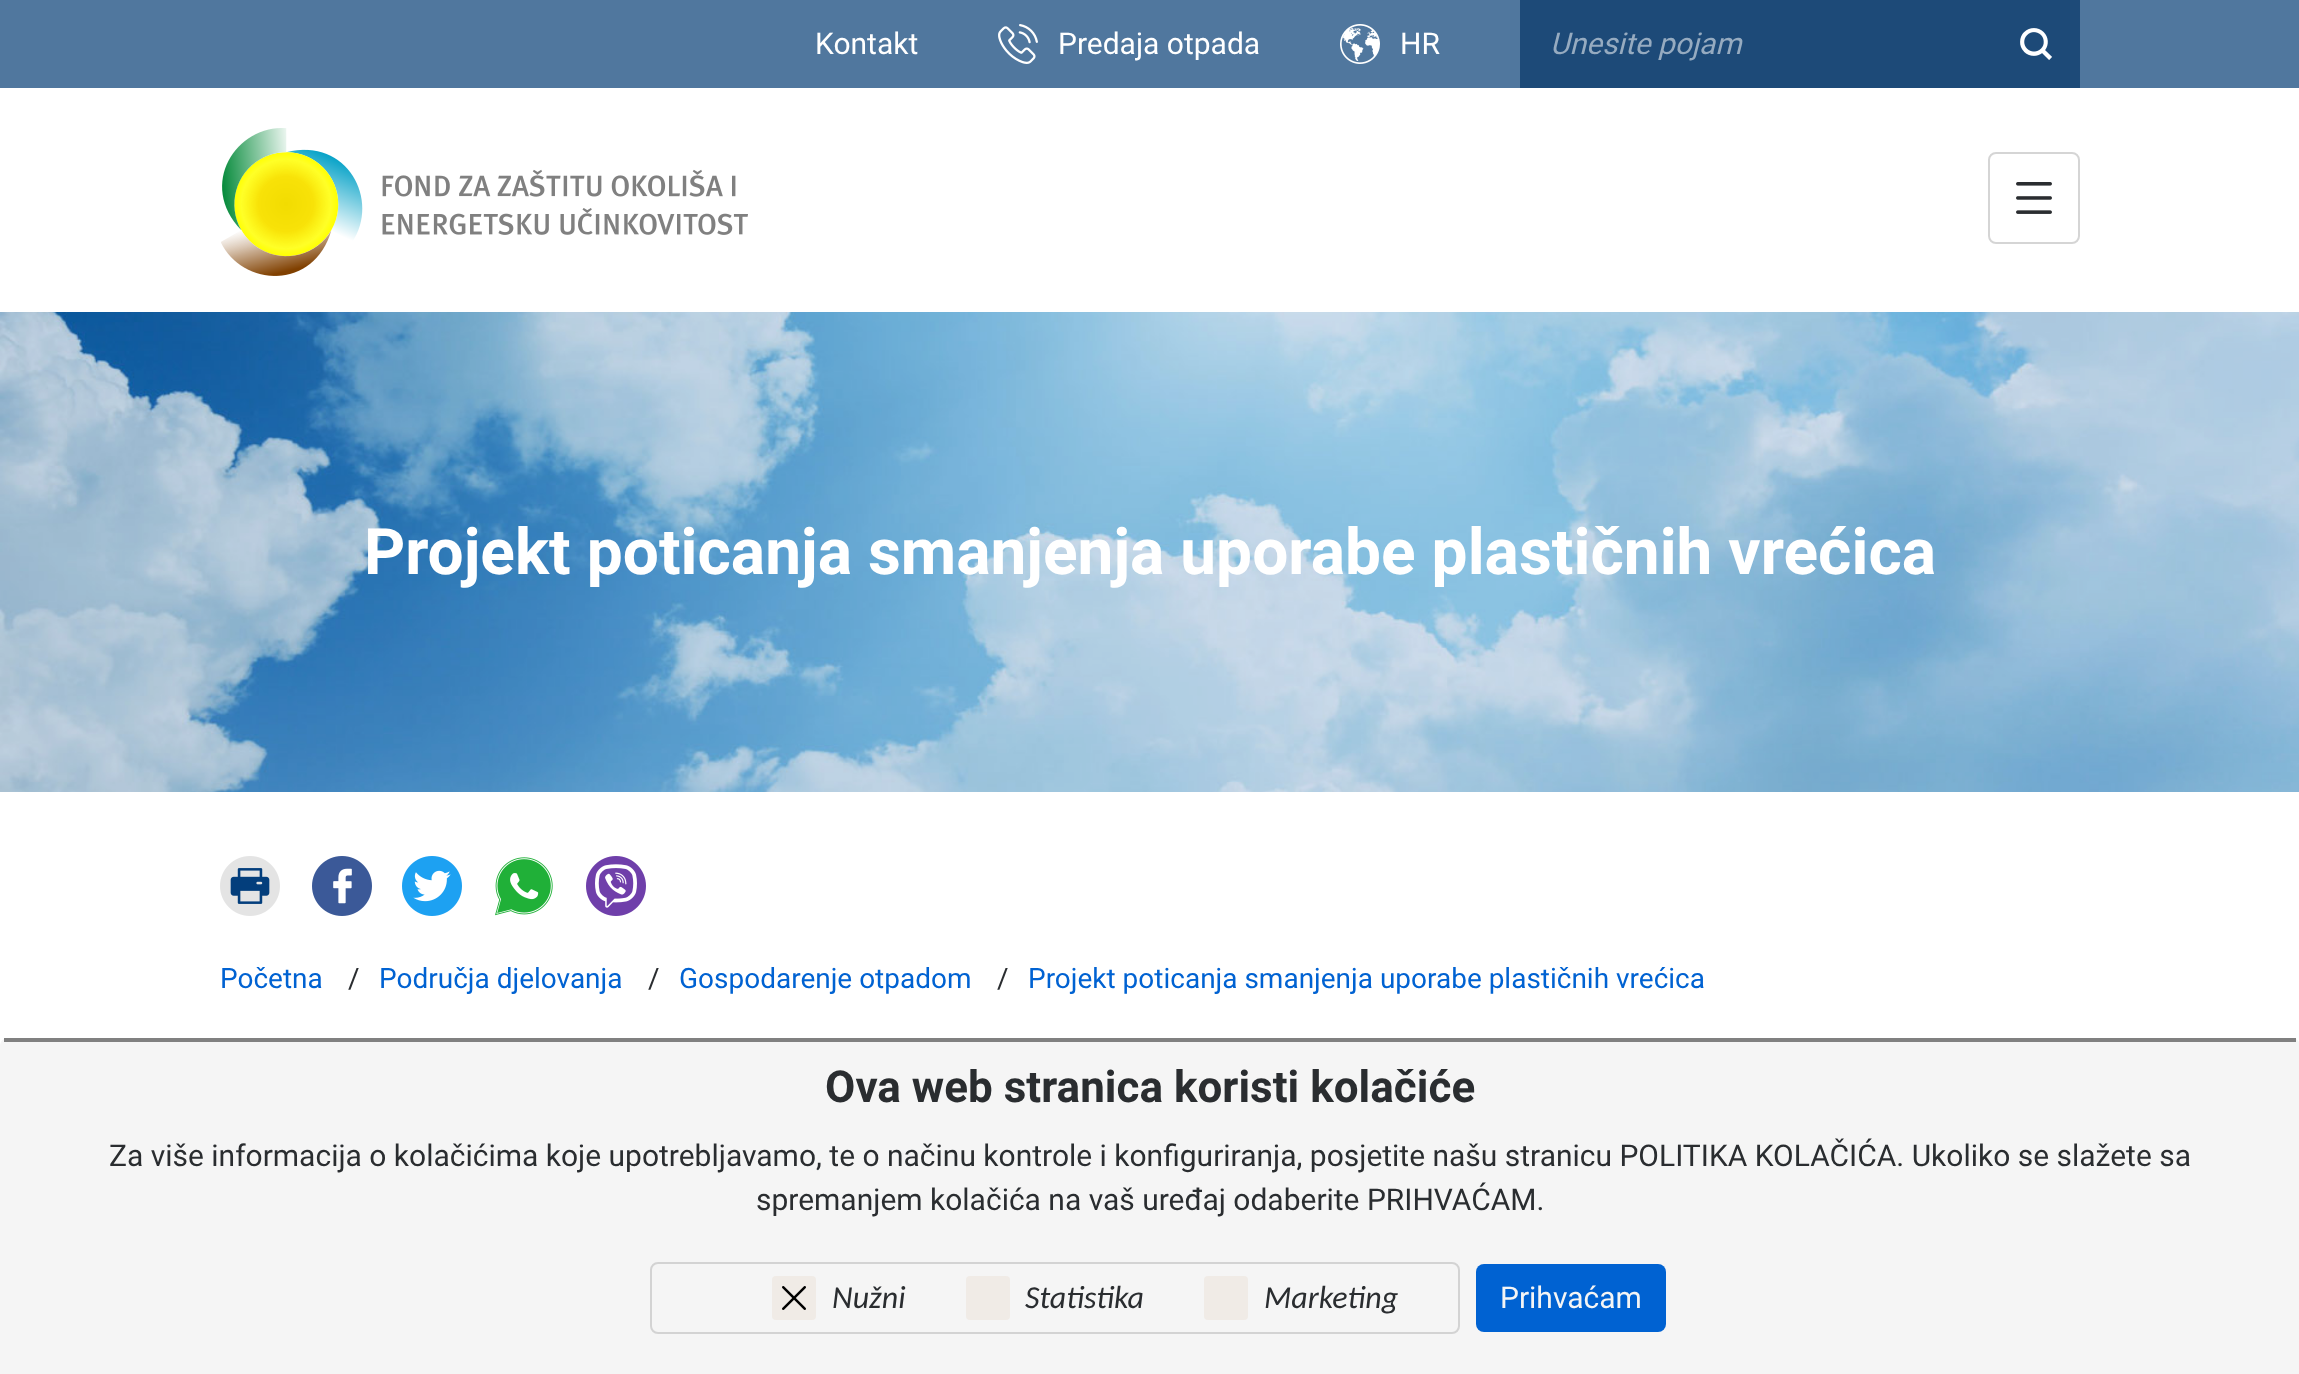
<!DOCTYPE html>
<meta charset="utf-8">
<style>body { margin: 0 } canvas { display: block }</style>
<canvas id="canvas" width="2299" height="1374"></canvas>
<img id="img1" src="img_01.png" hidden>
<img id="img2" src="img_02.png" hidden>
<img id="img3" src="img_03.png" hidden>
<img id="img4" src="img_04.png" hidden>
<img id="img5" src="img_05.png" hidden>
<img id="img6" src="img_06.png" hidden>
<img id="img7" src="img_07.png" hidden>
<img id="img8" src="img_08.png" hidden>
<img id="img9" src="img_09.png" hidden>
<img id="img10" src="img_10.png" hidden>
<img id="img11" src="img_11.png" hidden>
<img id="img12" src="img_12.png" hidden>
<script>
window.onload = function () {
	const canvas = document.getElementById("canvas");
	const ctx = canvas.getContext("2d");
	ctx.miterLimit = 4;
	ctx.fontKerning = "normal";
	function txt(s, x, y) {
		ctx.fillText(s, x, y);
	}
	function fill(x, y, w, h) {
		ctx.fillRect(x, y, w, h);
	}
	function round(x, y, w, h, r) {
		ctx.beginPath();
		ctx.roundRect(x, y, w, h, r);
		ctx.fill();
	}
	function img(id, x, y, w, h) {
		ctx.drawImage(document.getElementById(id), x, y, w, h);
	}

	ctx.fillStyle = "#FFFFFF";
	fill(0, 0, 2299, 1374);
	ctx.fillStyle = "#50779E";
	fill(0, 0, 2299, 88);
	img("img1", 998, 24, 40, 40);
	img("img2", 1340, 24, 40, 40);
	ctx.fillStyle = "#1D4A78";
	fill(1520, 0, 560, 88);
	img("img3", 2020, 28, 32, 32);
	img("img4", 221, 128, 527, 148);
	img("img5", 2016, 182, 36, 32);
	ctx.beginPath();
	ctx.roundRect(1989, 153, 90, 90, 7);
	ctx.strokeStyle = "#D5D5D5";
	ctx.lineWidth = 2;
	ctx.stroke();
	img("img6", 0, 312, 2299, 480);
	img("img7", 220, 856, 60, 60);
	img("img8", 312, 856, 60, 60);
	img("img9", 402, 856, 60, 60);
	img("img10", 495, 857, 58, 59);
	img("img11", 586, 856, 60, 60);
	ctx.fillStyle = "#F5F5F5";
	ctx.beginPath();
	ctx.moveTo(8, 1038);
	ctx.lineTo(2292, 1038);
	ctx.bezierCurveTo(2296.5, 1038, 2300, 1041.5, 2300, 1046);
	ctx.lineTo(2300, 1374);
	ctx.lineTo(0, 1374);
	ctx.lineTo(0, 1046);
	ctx.bezierCurveTo(0, 1041.5, 3.5, 1038, 8, 1038);
	ctx.closePath();
	ctx.fill();
	ctx.fillStyle = "#808080";
	fill(4, 1038, 2292, 4);
	ctx.beginPath();
	ctx.roundRect(651, 1263, 808, 70, 7);
	ctx.strokeStyle = "#D3D3D3";
	ctx.stroke();
	ctx.fillStyle = "#F0EBE6";
	round(772, 1276, 44, 44, 4);
	img("img12", 782, 1286, 24, 24);
	round(966, 1276, 44, 44, 4);
	round(1204, 1276, 44, 44, 4);
	ctx.fillStyle = "#0062D2";
	round(1476, 1264, 190, 68, 8);
	ctx.font = "30px Roboto";
	ctx.fillStyle = "#FFFFFF";
	txt("Kontakt", 815, 54);
	txt("Predaja otpada", 1058, 54);
	txt("HR", 1400, 54);
	ctx.font = "italic 30px Roboto";
	ctx.fillStyle = "#96ABC0";
	txt("Unesite pojam", 1550, 54);
	ctx.font = "bold 64px Roboto";
	ctx.fillStyle = "#FFFFFF";
	txt("Projekt poticanja smanjenja uporabe plastičnih vrećica", 364, 574);
	ctx.font = "28px Roboto";
	ctx.fillStyle = "#0062D2";
	txt("Početna", 220, 988);
	ctx.fillStyle = "#2A2D30";
	txt("/", 348, 988);
	ctx.fillStyle = "#0062D2";
	txt("Područja djelovanja", 379, 988);
	ctx.fillStyle = "#2A2D30";
	txt("/", 648, 988);
	ctx.fillStyle = "#0062D2";
	txt("Gospodarenje otpadom", 679, 988);
	ctx.fillStyle = "#2A2D30";
	txt("/", 997, 988);
	ctx.fillStyle = "#0062D2";
	txt("Projekt poticanja smanjenja uporabe plastičnih vrećica", 1028, 988);
	ctx.font = "bold 44px Roboto";
	ctx.fillStyle = "#2A2D30";
	txt("Ova web stranica koristi kolačiće", 825, 1102);
	ctx.font = "30px Roboto";
	txt("Za više informacija o kolačićima koje upotrebljavamo, te o načinu kontrole i konfiguriranja, posjetite našu stranicu POLITIKA KOLAČIĆA. Ukoliko se slažete sa", 109, 1166);
	txt("spremanjem kolačića na vaš uređaj odaberite PRIHVAĆAM.", 756, 1210);
	ctx.font = "italic 32px Carlito";
	txt("Nužni", 832, 1308);
	txt("Statistika", 1025, 1308);
	txt("Marketing", 1264, 1308);
	ctx.font = "30px Roboto";
	ctx.fillStyle = "#F5F5F5";
	txt("Prihvaćam", 1500, 1308);
};
</script>
